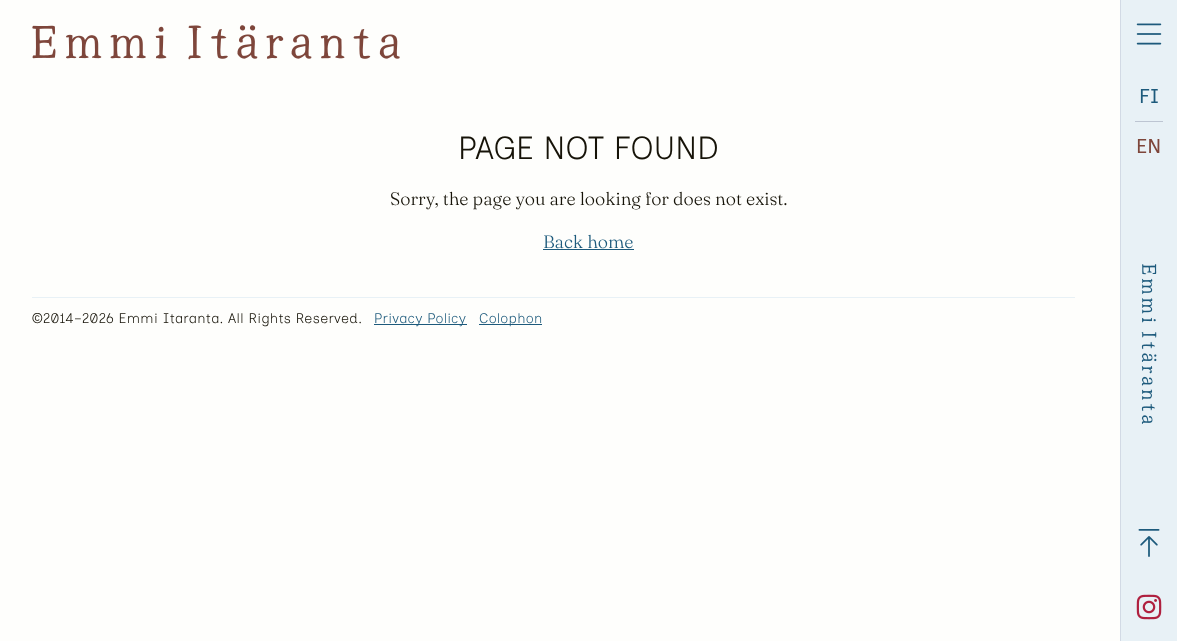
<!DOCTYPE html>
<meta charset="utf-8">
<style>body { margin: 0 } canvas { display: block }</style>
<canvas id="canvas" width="1177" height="641"></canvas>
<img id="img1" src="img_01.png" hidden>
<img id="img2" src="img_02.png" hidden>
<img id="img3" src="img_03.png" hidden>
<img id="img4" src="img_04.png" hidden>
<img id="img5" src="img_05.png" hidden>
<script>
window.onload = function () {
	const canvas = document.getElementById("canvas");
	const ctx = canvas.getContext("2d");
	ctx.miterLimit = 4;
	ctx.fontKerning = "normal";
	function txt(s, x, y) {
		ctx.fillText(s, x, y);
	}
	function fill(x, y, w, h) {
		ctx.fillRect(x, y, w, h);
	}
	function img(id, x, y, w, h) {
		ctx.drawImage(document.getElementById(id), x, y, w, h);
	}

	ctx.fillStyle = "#FEFEFC";
	fill(0, 0, 1177, 641);
	img("img1", 32, 25, 368, 35);
	ctx.fillStyle = "#E8F1F6";
	fill(1121, 0, 56, 641);
	ctx.fillStyle = "#D2DAE5";
	fill(1120, 0, 1, 641);
	img("img2", 1136, 23, 26, 22);
	ctx.fillStyle = "#BDC5D2";
	fill(1135, 121, 28, 1);
	img("img3", 1141, 264, 16, 160);
	img("img4", 1138, 529, 22, 28);
	img("img5", 1136, 594, 26, 26);
	ctx.fillStyle = "#1D5A7C";
	fill(543, 249, 91, 1);
	ctx.fillStyle = "#E8F1F6";
	fill(32, 297, 1043, 1);
	ctx.fillStyle = "#1D5A7C";
	fill(374, 324, 93, 1);
	fill(479, 324, 63, 1);
	ctx.font = "20px Inclusive Sans";
	txt("FI", 1139, 103);
	ctx.fillStyle = "#7E463B";
	txt("EN", 1136, 153);
	ctx.font = "300 32px Inclusive Sans";
	ctx.fillStyle = "#161308";
	txt("PAGE NOT FOUND", 458, 159);
	ctx.font = "300 18px Fraunces";
	txt("Sorry, the page you are looking for does not exist.", 390, 205);
	ctx.fillStyle = "#1D5A7C";
	txt("Back home", 543, 248);
	ctx.letterSpacing = "0.35px";
	ctx.font = "300 14px Inclusive Sans";
	ctx.fillStyle = "#161308";
	txt("©2014–2026 Emmi Itaranta. All Rights Reserved.", 32, 323);
	ctx.fillStyle = "#1D5A7C";
	txt("Privacy Policy", 374, 323);
	txt("Colophon", 479, 323);
};
</script>
